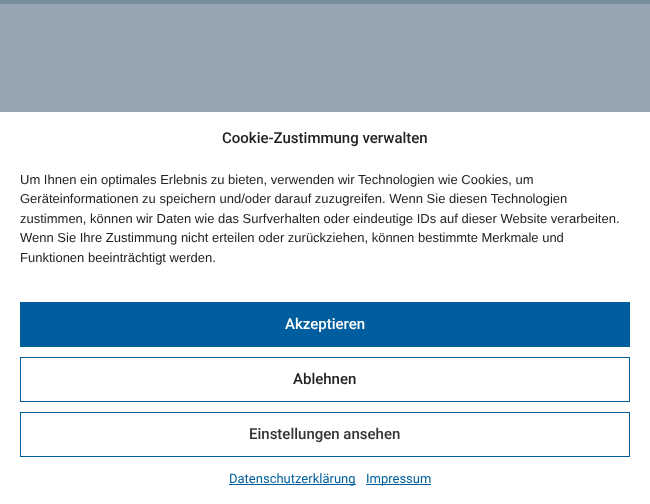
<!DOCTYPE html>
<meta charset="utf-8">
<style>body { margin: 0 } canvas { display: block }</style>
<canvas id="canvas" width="650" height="504"></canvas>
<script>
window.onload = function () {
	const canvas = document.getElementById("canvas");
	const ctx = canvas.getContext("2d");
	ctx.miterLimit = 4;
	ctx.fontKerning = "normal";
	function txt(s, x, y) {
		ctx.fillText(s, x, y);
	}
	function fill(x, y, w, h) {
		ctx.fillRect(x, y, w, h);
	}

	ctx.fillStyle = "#96A5B1";
	fill(0, 0, 650, 504);
	ctx.fillStyle = "#788D9B";
	fill(0, 0, 650, 4);
	ctx.fillStyle = "#FFFFFF";
	fill(0, 112, 650, 392);
	ctx.fillStyle = "#005E9E";
	fill(20, 302, 610, 45);
	ctx.strokeStyle = "#005E9E";
	ctx.strokeRect(20.5, 357.5, 609, 44);
	ctx.strokeRect(20.5, 412.5, 609, 44);
	fill(229, 484, 127, 1);
	fill(366, 484, 65, 1);
	ctx.font = "500 15px Roboto";
	ctx.fillStyle = "#222222";
	txt("Cookie-Zustimmung verwalten", 222, 143);
	ctx.font = "13px Liberation Sans";
	txt("Um Ihnen ein optimales Erlebnis zu bieten, verwenden wir Technologien wie Cookies, um", 20, 184);
	txt("Geräteinformationen zu speichern und/oder darauf zuzugreifen. Wenn Sie diesen Technologien", 20, 203);
	txt("zustimmen, können wir Daten wie das Surfverhalten oder eindeutige IDs auf dieser Website verarbeiten.", 20, 223);
	txt("Wenn Sie Ihre Zustimmung nicht erteilen oder zurückziehen, können bestimmte Merkmale und", 20, 242);
	txt("Funktionen beeinträchtigt werden.", 20, 262);
	ctx.font = "500 15px Roboto";
	ctx.fillStyle = "#FFFFFF";
	txt("Akzeptieren", 285, 329);
	ctx.fillStyle = "#222222";
	txt("Ablehnen", 293, 384);
	ctx.fillStyle = "#333333";
	txt("Einstellungen ansehen", 249, 439);
	ctx.font = "13px Roboto";
	ctx.fillStyle = "#005E9E";
	txt("Datenschutzerklärung", 229, 483);
	txt("Impressum", 366, 483);
};
</script>
